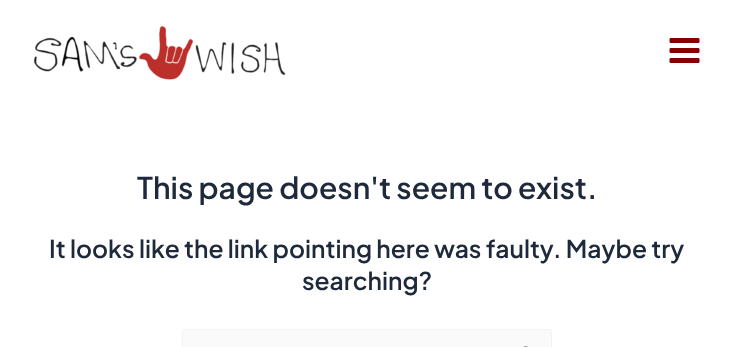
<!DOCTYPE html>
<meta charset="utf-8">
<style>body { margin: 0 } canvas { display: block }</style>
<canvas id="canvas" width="734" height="347"></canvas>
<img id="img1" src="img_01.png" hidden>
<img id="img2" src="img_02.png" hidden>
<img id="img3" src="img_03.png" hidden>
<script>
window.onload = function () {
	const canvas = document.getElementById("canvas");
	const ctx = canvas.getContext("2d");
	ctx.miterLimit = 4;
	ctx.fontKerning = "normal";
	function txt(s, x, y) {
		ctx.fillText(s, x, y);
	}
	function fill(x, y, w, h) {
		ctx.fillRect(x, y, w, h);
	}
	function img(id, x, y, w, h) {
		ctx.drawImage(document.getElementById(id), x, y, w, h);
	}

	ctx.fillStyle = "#FFFFFF";
	fill(0, 0, 734, 347);
	img("img1", 33, 26, 254, 54);
	img("img2", 669, 38, 31, 25);
	ctx.fillStyle = "#FAFAFA";
	ctx.beginPath();
	ctx.roundRect(182.5, 329.5, 369, 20, 1.5);
	ctx.fill();
	ctx.strokeStyle = "#F2F5F7";
	ctx.stroke();
	img("img3", 523, 346, 5, 1);
	ctx.font = "600 30px Plus Jakarta Sans";
	ctx.fillStyle = "#1E293B";
	txt("This page doesn't seem to exist.", 137, 199);
	ctx.font = "600 24.6px Plus Jakarta Sans";
	txt("It looks like the link pointing here was faulty. Maybe try", 49, 258);
	txt("searching?", 302, 290);
};
</script>
